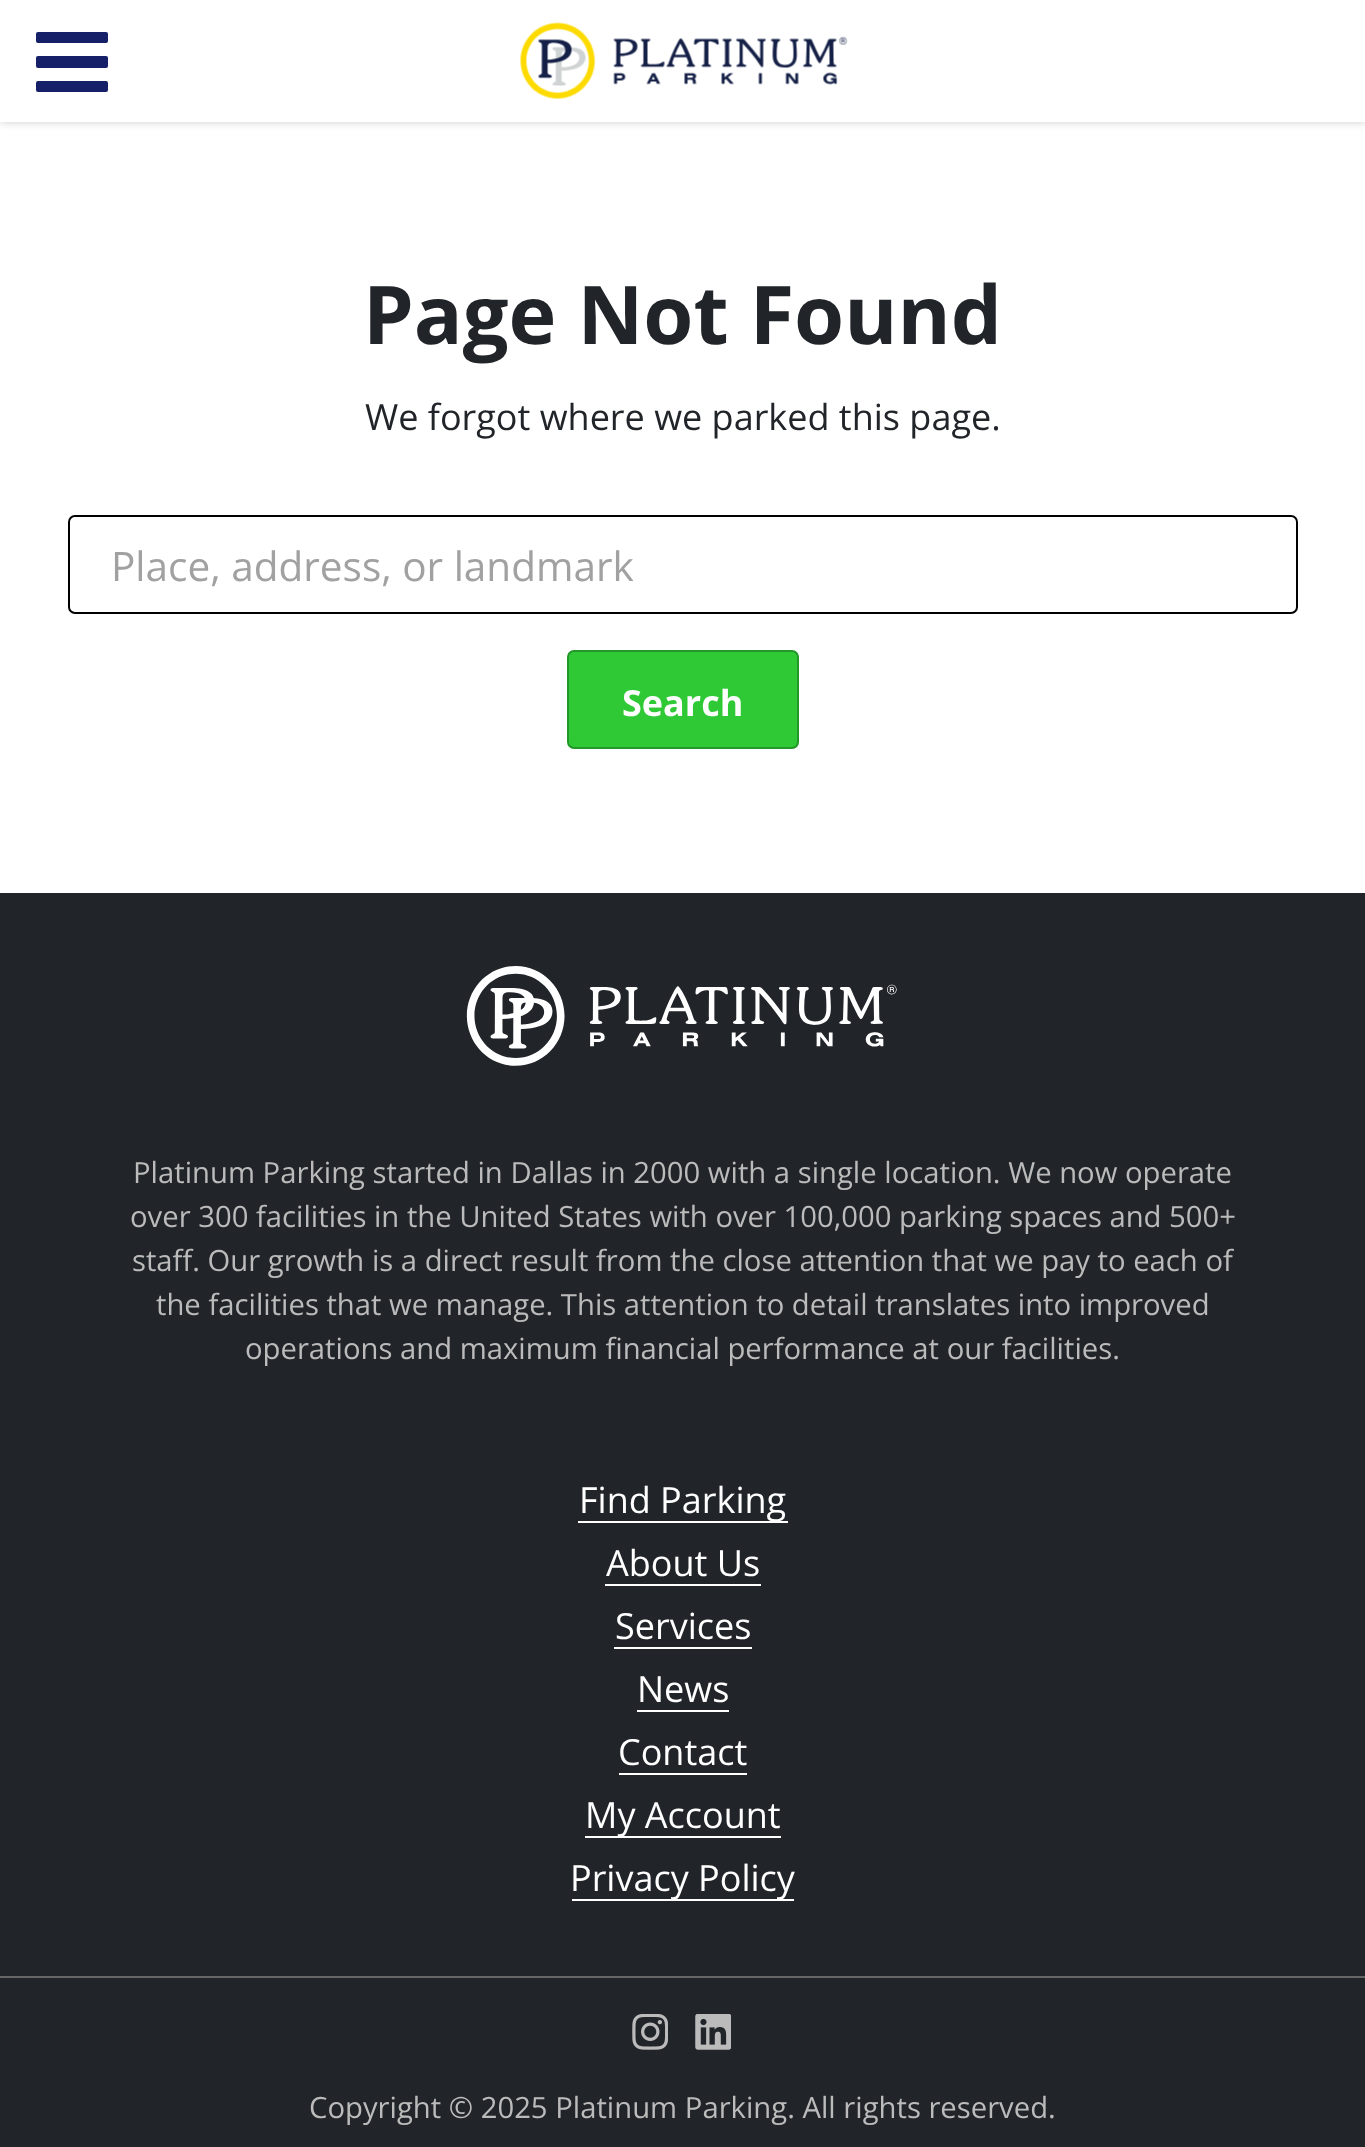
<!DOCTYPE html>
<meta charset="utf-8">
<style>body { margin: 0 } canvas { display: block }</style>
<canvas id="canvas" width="1365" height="2147"></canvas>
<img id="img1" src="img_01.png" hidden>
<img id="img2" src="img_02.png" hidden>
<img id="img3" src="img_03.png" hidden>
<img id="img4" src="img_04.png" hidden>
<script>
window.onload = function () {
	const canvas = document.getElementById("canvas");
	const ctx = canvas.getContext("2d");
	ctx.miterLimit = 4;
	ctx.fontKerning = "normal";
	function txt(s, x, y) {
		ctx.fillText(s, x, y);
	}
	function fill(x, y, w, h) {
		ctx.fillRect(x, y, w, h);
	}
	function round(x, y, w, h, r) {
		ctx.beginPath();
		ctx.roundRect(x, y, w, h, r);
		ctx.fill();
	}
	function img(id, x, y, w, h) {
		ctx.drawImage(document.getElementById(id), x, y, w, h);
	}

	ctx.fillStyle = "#212529";
	fill(0, 0, 1365, 2147);
	ctx.fillStyle = "#FFFFFF";
	fill(0, 122, 1365, 771);
	ctx.fillStyle = "rgba(0, 0, 0, 0.2)";
	ctx.filter = "blur(4.5px)";
	ctx.beginPath();
	ctx.rect(0, 0, 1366, 122);
	ctx.fill();
	ctx.filter = "none";
	ctx.fillStyle = "#FFFFFF";
	fill(0, 0, 1365, 122);
	ctx.fillStyle = "#152069";
	round(36, 32, 72, 11, 2);
	round(36, 56, 72, 12, 2);
	round(36, 81, 72, 11, 2);
	img("img1", 520, 22, 328, 77);
	ctx.beginPath();
	ctx.roundRect(69, 516, 1228, 97, 6);
	ctx.strokeStyle = "#000000";
	ctx.lineWidth = 2;
	ctx.stroke();
	ctx.fillStyle = "#2FC936";
	ctx.beginPath();
	ctx.roundRect(568, 651, 230, 97, 6);
	ctx.fill();
	ctx.strokeStyle = "#239729";
	ctx.stroke();
	img("img2", 466, 966, 431, 100);
	ctx.fillStyle = "#FFFFFF";
	fill(578, 1521, 210, 2);
	fill(605, 1584, 156, 2);
	fill(614, 1647, 138, 2);
	fill(637, 1710, 92, 2);
	fill(619, 1773, 128, 2);
	fill(585, 1836, 196, 2);
	fill(572, 1899, 222, 2);
	ctx.fillStyle = "#666666";
	fill(0, 1976, 1365, 2);
	img("img3", 632, 2014, 36, 36);
	img("img4", 695, 2014, 36, 36);
	ctx.font = "bold 81px Open Sans";
	ctx.fillStyle = "#212529";
	txt("Page Not Found", 363, 344);
	ctx.font = "36px Open Sans";
	txt("We forgot where we parked this page.", 365, 430);
	ctx.font = "40.5px Open Sans";
	ctx.fillStyle = "#A1A1A1";
	txt("Place, address, or landmark", 111, 581);
	ctx.font = "bold 36px Open Sans";
	ctx.fillStyle = "#FFFFFF";
	txt("Search", 622, 716);
	ctx.font = "29.25px Open Sans";
	ctx.fillStyle = "#BBBBBB";
	txt("Platinum Parking started in Dallas in 2000 with a single location. We now operate", 133, 1183);
	txt("over 300 facilities in the United States with over 100,000 parking spaces and 500+", 130, 1227);
	txt("staff. Our growth is a direct result from the close attention that we pay to each of", 132, 1271);
	txt("the facilities that we manage. This attention to detail translates into improved", 156, 1315);
	txt("operations and maximum financial performance at our facilities.", 245, 1359);
	ctx.font = "36px Open Sans";
	ctx.fillStyle = "#FFFFFF";
	txt("Find Parking", 579, 1513);
	txt("About Us", 606, 1576);
	txt("Services", 615, 1639);
	txt("News", 637, 1702);
	txt("Contact", 618, 1765);
	txt("My Account", 585, 1828);
	txt("Privacy Policy", 570, 1891);
	ctx.font = "29.25px Open Sans";
	ctx.fillStyle = "#BBBBBB";
	txt("Copyright © 2025 Platinum Parking. All rights reserved.", 309, 2118);
};
</script>
